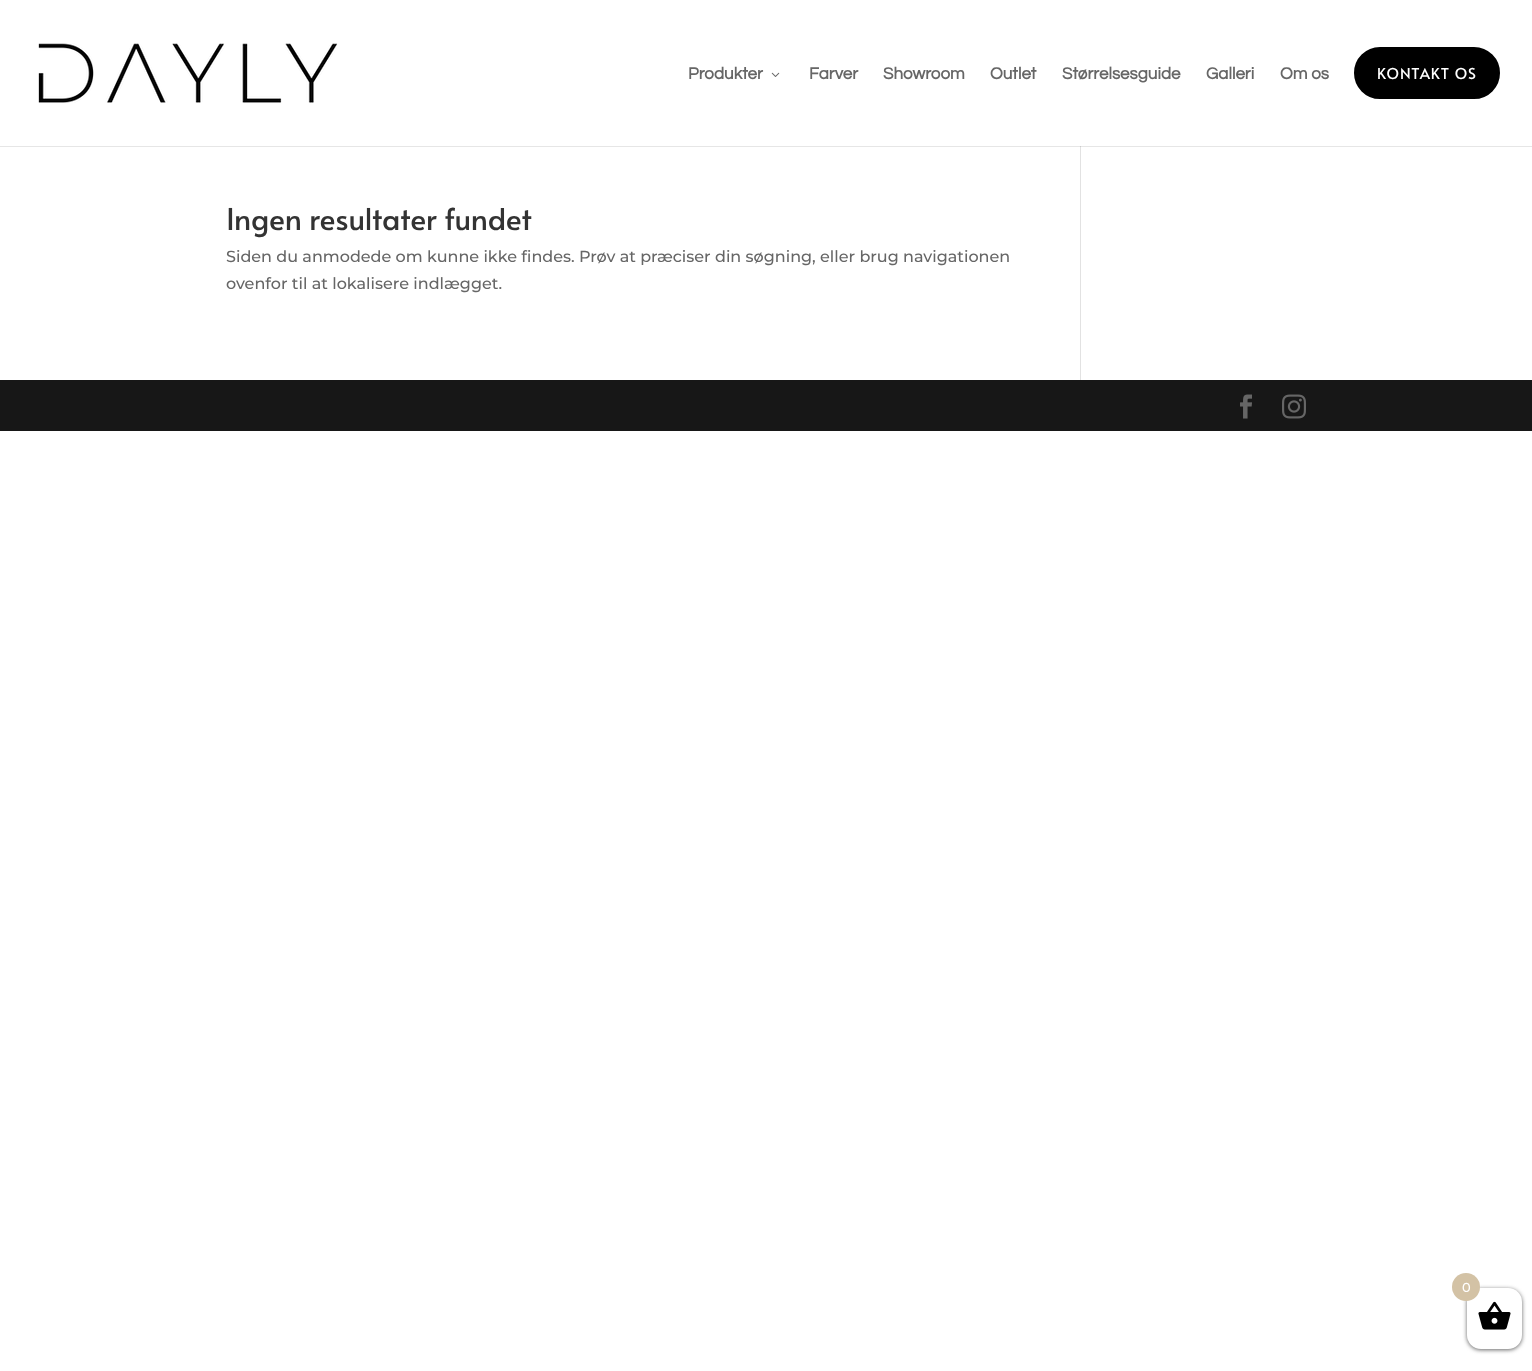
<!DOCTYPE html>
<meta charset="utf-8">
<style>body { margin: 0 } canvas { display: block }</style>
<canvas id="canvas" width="1532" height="1371"></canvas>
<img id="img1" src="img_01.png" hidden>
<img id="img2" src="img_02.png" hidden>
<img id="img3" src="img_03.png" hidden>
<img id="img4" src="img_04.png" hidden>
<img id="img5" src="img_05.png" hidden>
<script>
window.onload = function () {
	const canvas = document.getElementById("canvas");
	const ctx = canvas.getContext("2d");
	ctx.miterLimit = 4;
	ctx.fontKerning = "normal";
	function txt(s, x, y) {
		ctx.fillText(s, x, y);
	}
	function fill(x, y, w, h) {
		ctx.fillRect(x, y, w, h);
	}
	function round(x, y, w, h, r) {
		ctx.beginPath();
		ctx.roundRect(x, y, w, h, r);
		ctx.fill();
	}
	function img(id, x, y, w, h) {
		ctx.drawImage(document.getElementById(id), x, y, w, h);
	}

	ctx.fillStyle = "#FFFFFF";
	fill(0, 0, 1532, 1371);
	ctx.fillStyle = "#E6E6E6";
	fill(0, 146, 1532, 1);
	ctx.fillStyle = "#E2E2E2";
	fill(1080, 145, 1, 235);
	ctx.fillStyle = "#FFFFFF";
	fill(1080, 145, 1, 1);
	img("img1", 38, 43, 300, 60);
	img("img2", 771, 72, 9, 5);
	ctx.fillStyle = "#000000";
	ctx.beginPath();
	ctx.roundRect(1355.5, 48.5, 143, 49, 24.5);
	ctx.fill();
	ctx.strokeStyle = "#000000";
	ctx.lineWidth = 3;
	ctx.stroke();
	ctx.fillStyle = "#CBCBCB";
	fill(1080, 146, 1, 1);
	ctx.fillStyle = "#171717";
	fill(0, 380, 1532, 51);
	img("img3", 1240, 394, 12, 25);
	img("img4", 1282, 394, 24, 25);
	ctx.fillStyle = "#666666";
	ctx.filter = "blur(2px)";
	ctx.beginPath();
	ctx.roundRect(1467, 1289, 55, 61, 14);
	ctx.fill();
	ctx.filter = "none";
	ctx.fillStyle = "#FFFFFF";
	round(1467, 1288, 55, 61, 14);
	ctx.fillStyle = "#D3C2A5";
	ctx.beginPath();
	ctx.arc(1466, 1287, 14, 0, Math.PI * 2);
	ctx.fill();
	img("img5", 1478, 1301, 33, 29);
	ctx.font = "bold 17px Questrial";
	ctx.fillStyle = "#666666";
	txt("Produkter", 688, 79);
	txt("Farver", 809, 79);
	txt("Showroom", 883, 79);
	txt("Outlet", 990, 79);
	txt("Størrelsesguide", 1062, 79);
	txt("Galleri", 1206, 79);
	txt("Om os", 1280, 79);
	ctx.letterSpacing = "1px";
	ctx.font = "15px Alata";
	ctx.fillStyle = "#FFFFFF";
	txt("KONTAKT OS", 1377, 79);
	ctx.letterSpacing = "0px";
	ctx.font = "30px Alata";
	ctx.fillStyle = "#333333";
	txt("Ingen resultater fundet", 226, 230);
	ctx.font = "500 16px Montserrat";
	ctx.fillStyle = "#666666";
	txt("Siden du anmodede om kunne ikke findes. Prøv at præciser din søgning, eller brug navigationen", 226, 262);
	txt("ovenfor til at lokalisere indlægget.", 226, 289);
	ctx.font = "500 13px Montserrat";
	ctx.fillStyle = "#FFFFFF";
	txt("0", 1462, 1292);
};
</script>
